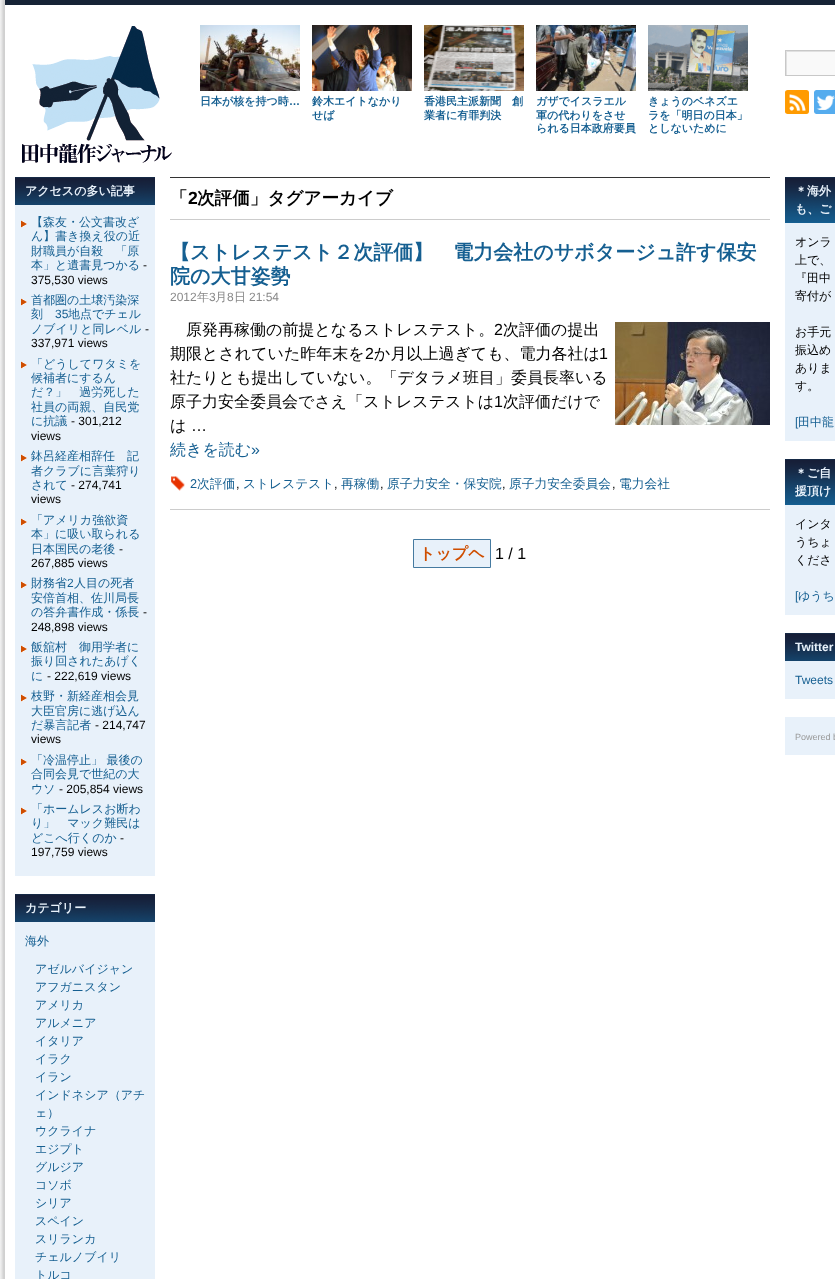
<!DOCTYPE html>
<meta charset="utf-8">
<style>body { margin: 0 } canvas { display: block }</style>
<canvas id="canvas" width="835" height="1279"></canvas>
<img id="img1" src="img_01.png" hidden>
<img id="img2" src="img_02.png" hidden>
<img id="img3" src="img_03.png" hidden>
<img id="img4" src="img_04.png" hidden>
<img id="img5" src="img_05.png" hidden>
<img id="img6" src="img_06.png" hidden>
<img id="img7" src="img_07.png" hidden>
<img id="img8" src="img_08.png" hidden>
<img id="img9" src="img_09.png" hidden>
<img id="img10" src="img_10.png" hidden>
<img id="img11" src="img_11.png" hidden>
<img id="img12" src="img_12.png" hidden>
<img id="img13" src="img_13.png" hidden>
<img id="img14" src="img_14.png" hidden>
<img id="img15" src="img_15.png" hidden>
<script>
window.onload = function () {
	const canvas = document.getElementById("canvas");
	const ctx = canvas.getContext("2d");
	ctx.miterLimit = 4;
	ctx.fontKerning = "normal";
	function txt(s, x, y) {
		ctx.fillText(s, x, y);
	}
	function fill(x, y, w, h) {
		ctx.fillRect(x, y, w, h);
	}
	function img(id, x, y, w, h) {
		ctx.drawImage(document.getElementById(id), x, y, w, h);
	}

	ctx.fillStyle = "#FFFFFF";
	fill(0, 0, 835, 1279);
	img("img1", 0, 0, 5, 1279);
	ctx.fillStyle = "#162336";
	fill(5, 0, 830, 5);
	img("img2", 22, 26, 150, 137);
	ctx.fillStyle = "#F9F9F9";
	fill(787, 52, 48, 23);
	ctx.save();
	ctx.beginPath();
	ctx.rect(786, 51, 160, 24);
	ctx.clip();
	ctx.fillStyle = "#E0E0E0";
	ctx.beginPath();
	ctx.moveTo(687, -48);
	ctx.lineTo(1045, -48);
	ctx.lineTo(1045, 174);
	ctx.lineTo(687, 174);
	ctx.closePath();
	ctx.moveTo(787, 52);
	ctx.lineTo(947, 52);
	ctx.lineTo(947, 76);
	ctx.lineTo(787, 76);
	ctx.closePath();
	ctx.fill("evenodd");
	ctx.restore();
	ctx.strokeStyle = "#C8C8C8";
	ctx.strokeRect(785.5, 50.5, 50, 25);
	img("img3", 200, 25, 100, 66);
	img("img4", 312, 25, 100, 66);
	img("img5", 424, 25, 100, 66);
	img("img6", 536, 25, 100, 66);
	img("img7", 648, 25, 100, 66);
	img("img8", 785, 90, 24, 24);
	img("img9", 814, 90, 21, 24);
	ctx.fillStyle = "#E8F1FA";
	fill(15, 205, 140, 671);
	img("img10", 15, 177, 140, 28);
	img("img11", 21, 220, 6, 8);
	img("img11", 21, 298, 6, 8);
	img("img11", 21, 361, 6, 8);
	img("img11", 21, 454, 6, 8);
	img("img11", 21, 518, 6, 8);
	img("img11", 21, 581, 6, 8);
	img("img11", 21, 645, 6, 8);
	img("img11", 21, 694, 6, 8);
	img("img11", 21, 758, 6, 8);
	img("img11", 21, 807, 6, 8);
	fill(15, 922, 140, 357);
	img("img10", 15, 894, 140, 28);
	ctx.fillStyle = "#333333";
	fill(170, 177, 600, 1);
	ctx.fillStyle = "#CCCCCC";
	fill(170, 219, 600, 1);
	fill(170, 509, 600, 1);
	img("img12", 615, 322, 155, 103);
	img("img13", 171, 476, 14, 15);
	ctx.fillStyle = "#E8F1FA";
	ctx.beginPath();
	ctx.rect(413.5, 539.5, 77, 28);
	ctx.fill();
	ctx.strokeStyle = "#457AA0";
	ctx.stroke();
	ctx.fillStyle = "#155F91";
	fill(785, 222, 50, 1);
	img("img14", 785, 177, 50, 45);
	ctx.fillStyle = "#E8F1FA";
	fill(785, 223, 50, 218);
	ctx.fillStyle = "#155F91";
	fill(785, 504, 50, 1);
	img("img14", 785, 459, 50, 45);
	ctx.fillStyle = "#E8F1FA";
	fill(785, 505, 50, 110);
	img("img15", 785, 633, 50, 28);
	fill(785, 661, 50, 38);
	fill(785, 717, 50, 38);
	ctx.font = "bold 11px WenQuanYi Zen Hei";
	ctx.fillStyle = "#155F91";
	txt("日本が核を持つ時", 200, 105);
	ctx.font = "bold 11px Liberation Sans";
	txt("…", 289, 105);
	ctx.font = "bold 11px WenQuanYi Zen Hei";
	txt("鈴木エイトなかり", 312, 105);
	txt("せば", 312, 119);
	txt("香港民主派新聞　創", 424, 105);
	txt("業者に有罪判決", 424, 119);
	txt("ガザでイスラエル", 536, 105);
	txt("軍の代わりをさせ", 536, 119);
	txt("られる日本政府要員", 536, 132);
	txt("きょうのベネズエ", 648, 105);
	txt("ラを「明日の日本」", 648, 119);
	txt("としないために", 648, 132);
	ctx.font = "bold 12px WenQuanYi Zen Hei";
	ctx.fillStyle = "#E8F1FA";
	txt("アクセスの多い記事", 25, 195);
	ctx.font = "500 12px WenQuanYi Zen Hei";
	ctx.fillStyle = "#155F91";
	txt("【森友・公文書改ざ", 31, 226);
	txt("ん】書き換え役の近", 31, 240);
	txt("財職員が自殺　「原", 31, 255);
	txt("本」と遺書見つかる", 31, 269);
	ctx.font = "12px Liberation Sans";
	ctx.fillStyle = "#000000";
	txt("-", 143, 269);
	txt("375,530 views", 31, 284);
	ctx.font = "500 12px WenQuanYi Zen Hei";
	ctx.fillStyle = "#155F91";
	txt("首都圏の土壌汚染深", 31, 304);
	txt("刻", 31, 318);
	ctx.font = "12px Liberation Sans";
	txt("35", 55, 318);
	ctx.font = "500 12px WenQuanYi Zen Hei";
	txt("地点でチェル", 68, 318);
	txt("ノブイリと同レベル", 31, 333);
	ctx.font = "12px Liberation Sans";
	ctx.fillStyle = "#000000";
	txt("-", 145, 333);
	txt("337,971 views", 31, 347);
	ctx.font = "500 12px WenQuanYi Zen Hei";
	ctx.fillStyle = "#155F91";
	txt("「どうしてワタミを", 31, 368);
	txt("候補者にするん", 31, 382);
	txt("だ？」　過労死した", 31, 396);
	txt("社員の両親、自民党", 31, 411);
	txt("に抗議", 31, 425);
	ctx.font = "12px Liberation Sans";
	ctx.fillStyle = "#000000";
	txt("- 301,212", 71, 425);
	txt("views", 31, 440);
	ctx.font = "500 12px WenQuanYi Zen Hei";
	ctx.fillStyle = "#155F91";
	txt("鉢呂経産相辞任　記", 31, 460);
	txt("者クラブに言葉狩り", 31, 475);
	txt("されて", 31, 489);
	ctx.font = "12px Liberation Sans";
	ctx.fillStyle = "#000000";
	txt("- 274,741", 71, 489);
	txt("views", 31, 503);
	ctx.font = "500 12px WenQuanYi Zen Hei";
	ctx.fillStyle = "#155F91";
	txt("「アメリカ強欲資", 31, 524);
	txt("本」に吸い取られる", 31, 538);
	txt("日本国民の老後", 31, 553);
	ctx.font = "12px Liberation Sans";
	ctx.fillStyle = "#000000";
	txt("-", 119, 553);
	txt("267,885 views", 31, 567);
	ctx.font = "500 12px WenQuanYi Zen Hei";
	ctx.fillStyle = "#155F91";
	txt("財務省", 31, 587);
	ctx.font = "12px Liberation Sans";
	txt("2", 67, 587);
	ctx.font = "500 12px WenQuanYi Zen Hei";
	txt("人目の死者", 74, 587);
	txt("安倍首相、佐川局長", 31, 602);
	txt("の答弁書作成・係長", 31, 616);
	ctx.font = "12px Liberation Sans";
	ctx.fillStyle = "#000000";
	txt("-", 143, 616);
	txt("248,898 views", 31, 631);
	ctx.font = "500 12px WenQuanYi Zen Hei";
	ctx.fillStyle = "#155F91";
	txt("飯舘村　御用学者に", 31, 651);
	txt("振り回されたあげく", 31, 665);
	txt("に", 31, 680);
	ctx.font = "12px Liberation Sans";
	ctx.fillStyle = "#000000";
	txt("- 222,619 views", 47, 680);
	ctx.font = "500 12px WenQuanYi Zen Hei";
	ctx.fillStyle = "#155F91";
	txt("枝野・新経産相会見", 31, 700);
	txt("大臣官房に逃げ込ん", 31, 715);
	txt("だ暴言記者", 31, 729);
	ctx.font = "12px Liberation Sans";
	ctx.fillStyle = "#000000";
	txt("- 214,747", 95, 729);
	txt("views", 31, 743);
	ctx.font = "500 12px WenQuanYi Zen Hei";
	ctx.fillStyle = "#155F91";
	txt("「冷温停止」 最後の", 31, 764);
	txt("合同会見で世紀の大", 31, 778);
	txt("ウソ", 31, 793);
	ctx.font = "12px Liberation Sans";
	ctx.fillStyle = "#000000";
	txt("- 205,854 views", 59, 793);
	ctx.font = "500 12px WenQuanYi Zen Hei";
	ctx.fillStyle = "#155F91";
	txt("「ホームレスお断わ", 31, 813);
	txt("り」　マック難民は", 31, 827);
	txt("どこへ行くのか", 31, 842);
	ctx.font = "12px Liberation Sans";
	ctx.fillStyle = "#000000";
	txt("-", 120, 842);
	txt("197,759 views", 31, 856);
	ctx.font = "bold 12px WenQuanYi Zen Hei";
	ctx.fillStyle = "#E8F1FA";
	txt("カテゴリー", 25, 912);
	ctx.font = "500 12px WenQuanYi Zen Hei";
	ctx.fillStyle = "#155F91";
	txt("海外", 25, 945);
	txt("アゼルバイジャン", 35, 973);
	txt("アフガニスタン", 35, 991);
	txt("アメリカ", 35, 1009);
	txt("アルメニア", 35, 1027);
	txt("イタリア", 35, 1045);
	txt("イラク", 35, 1063);
	txt("イラン", 35, 1081);
	txt("インドネシア（アチ", 35, 1099);
	txt("ェ）", 35, 1117);
	txt("ウクライナ", 35, 1135);
	txt("エジプト", 35, 1153);
	txt("グルジア", 35, 1171);
	txt("コソボ", 35, 1189);
	txt("シリア", 35, 1207);
	txt("スペイン", 35, 1225);
	txt("スリランカ", 35, 1243);
	txt("チェルノブイリ", 35, 1261);
	txt("トルコ", 35, 1279);
	ctx.font = "bold 17.6px WenQuanYi Zen Hei";
	ctx.fillStyle = "#000000";
	txt("「", 170, 204);
	ctx.font = "bold 17.6px Liberation Sans";
	txt("2", 188, 204);
	ctx.font = "bold 17.6px WenQuanYi Zen Hei";
	txt("次評価」タグアーカイブ", 197, 204);
	ctx.font = "bold 20px WenQuanYi Zen Hei";
	ctx.fillStyle = "#155F91";
	txt("【ストレステスト２次評価】　電力会社のサボタージュ許す保安", 170, 259);
	txt("院の大甘姿勢", 170, 283);
	ctx.font = "12px Liberation Sans";
	ctx.fillStyle = "#888888";
	txt("2012", 170, 301);
	ctx.font = "500 12px WenQuanYi Zen Hei";
	txt("年", 197, 301);
	ctx.font = "12px Liberation Sans";
	txt("3", 209, 301);
	ctx.font = "500 12px WenQuanYi Zen Hei";
	txt("月", 215, 301);
	ctx.font = "12px Liberation Sans";
	txt("8", 227, 301);
	ctx.font = "500 12px WenQuanYi Zen Hei";
	txt("日", 234, 301);
	ctx.font = "12px Liberation Sans";
	txt("21:54", 249, 301);
	ctx.font = "500 16px WenQuanYi Zen Hei";
	ctx.fillStyle = "#000000";
	txt("原発再稼働の前提となるストレステスト。", 186, 335);
	ctx.font = "16px Liberation Sans";
	txt("2", 494, 335);
	ctx.font = "500 16px WenQuanYi Zen Hei";
	txt("次評価の提出", 503, 335);
	txt("期限とされていた昨年末を", 170, 359);
	ctx.font = "16px Liberation Sans";
	txt("2", 365, 359);
	ctx.font = "500 16px WenQuanYi Zen Hei";
	txt("か月以上過ぎても、電力各社は", 374, 359);
	ctx.font = "16px Liberation Sans";
	txt("1", 599, 359);
	ctx.font = "500 16px WenQuanYi Zen Hei";
	txt("社たりとも提出していない。「デタラメ班目」委員長率いる", 170, 383);
	txt("原子力安全委員会でさえ「ストレステストは", 170, 407);
	ctx.font = "16px Liberation Sans";
	txt("1", 494, 407);
	ctx.font = "500 16px WenQuanYi Zen Hei";
	txt("次評価だけで", 503, 407);
	txt("は", 170, 431);
	ctx.font = "16px Liberation Sans";
	txt("…", 191, 431);
	ctx.font = "500 16px WenQuanYi Zen Hei";
	ctx.fillStyle = "#155F91";
	txt("続きを読む", 170, 455);
	ctx.font = "16px Liberation Sans";
	txt("»", 251, 455);
	ctx.font = "12.75px Liberation Sans";
	txt("2", 190, 488);
	ctx.font = "500 12.75px WenQuanYi Zen Hei";
	txt("次評価", 197, 488);
	ctx.font = "12.75px Liberation Sans";
	ctx.fillStyle = "#000000";
	txt(",", 236, 488);
	ctx.font = "500 12.75px WenQuanYi Zen Hei";
	ctx.fillStyle = "#155F91";
	txt("ストレステスト", 243, 488);
	ctx.font = "12.75px Liberation Sans";
	ctx.fillStyle = "#000000";
	txt(",", 334, 488);
	ctx.font = "500 12.75px WenQuanYi Zen Hei";
	ctx.fillStyle = "#155F91";
	txt("再稼働", 341, 488);
	ctx.font = "12.75px Liberation Sans";
	ctx.fillStyle = "#000000";
	txt(",", 380, 488);
	ctx.font = "500 12.75px WenQuanYi Zen Hei";
	ctx.fillStyle = "#155F91";
	txt("原子力安全・保安院", 387, 488);
	ctx.font = "12.75px Liberation Sans";
	ctx.fillStyle = "#000000";
	txt(",", 502, 488);
	ctx.font = "500 12.75px WenQuanYi Zen Hei";
	ctx.fillStyle = "#155F91";
	txt("原子力安全委員会", 509, 488);
	ctx.font = "12.75px Liberation Sans";
	ctx.fillStyle = "#000000";
	txt(",", 612, 488);
	ctx.font = "500 12.75px WenQuanYi Zen Hei";
	ctx.fillStyle = "#155F91";
	txt("電力会社", 619, 488);
	ctx.font = "bold 16px WenQuanYi Zen Hei";
	ctx.fillStyle = "#CF4E00";
	txt("トップヘ", 419, 559);
	ctx.font = "16px Liberation Sans";
	ctx.fillStyle = "#000000";
	txt("1 / 1", 495, 559);
	ctx.font = "bold 12px WenQuanYi Zen Hei";
	ctx.fillStyle = "#E8F1FA";
	txt("＊海外", 795, 195);
	txt("も、ご", 795, 213);
	ctx.font = "500 12px WenQuanYi Zen Hei";
	ctx.fillStyle = "#000000";
	txt("オンラ", 795, 246);
	txt("上で、", 795, 264);
	txt("『田中", 795, 282);
	txt("寄付が", 795, 300);
	txt("お手元", 795, 336);
	txt("振込め", 795, 354);
	txt("ありま", 795, 372);
	txt("す。", 795, 390);
	ctx.font = "12px Liberation Sans";
	ctx.fillStyle = "#155F91";
	txt("[", 795, 426);
	ctx.font = "500 12px WenQuanYi Zen Hei";
	txt("田中龍", 798, 426);
	ctx.font = "bold 12px WenQuanYi Zen Hei";
	ctx.fillStyle = "#E8F1FA";
	txt("＊ご自", 795, 477);
	txt("援頂け", 795, 495);
	ctx.font = "500 12px WenQuanYi Zen Hei";
	ctx.fillStyle = "#000000";
	txt("インタ", 795, 528);
	txt("うちょ", 795, 546);
	txt("くださ", 795, 564);
	ctx.font = "12px Liberation Sans";
	ctx.fillStyle = "#155F91";
	txt("[", 795, 600);
	ctx.font = "500 12px WenQuanYi Zen Hei";
	txt("ゆうち", 798, 600);
	ctx.font = "bold 12px Liberation Sans";
	ctx.fillStyle = "#E8F1FA";
	txt("Twitter", 795, 651);
	ctx.font = "12px Liberation Sans";
	ctx.fillStyle = "#155F91";
	txt("Tweets", 795, 684);
	ctx.font = "9px Liberation Sans";
	ctx.fillStyle = "#999999";
	txt("Powered b", 795, 740);
};
</script>
